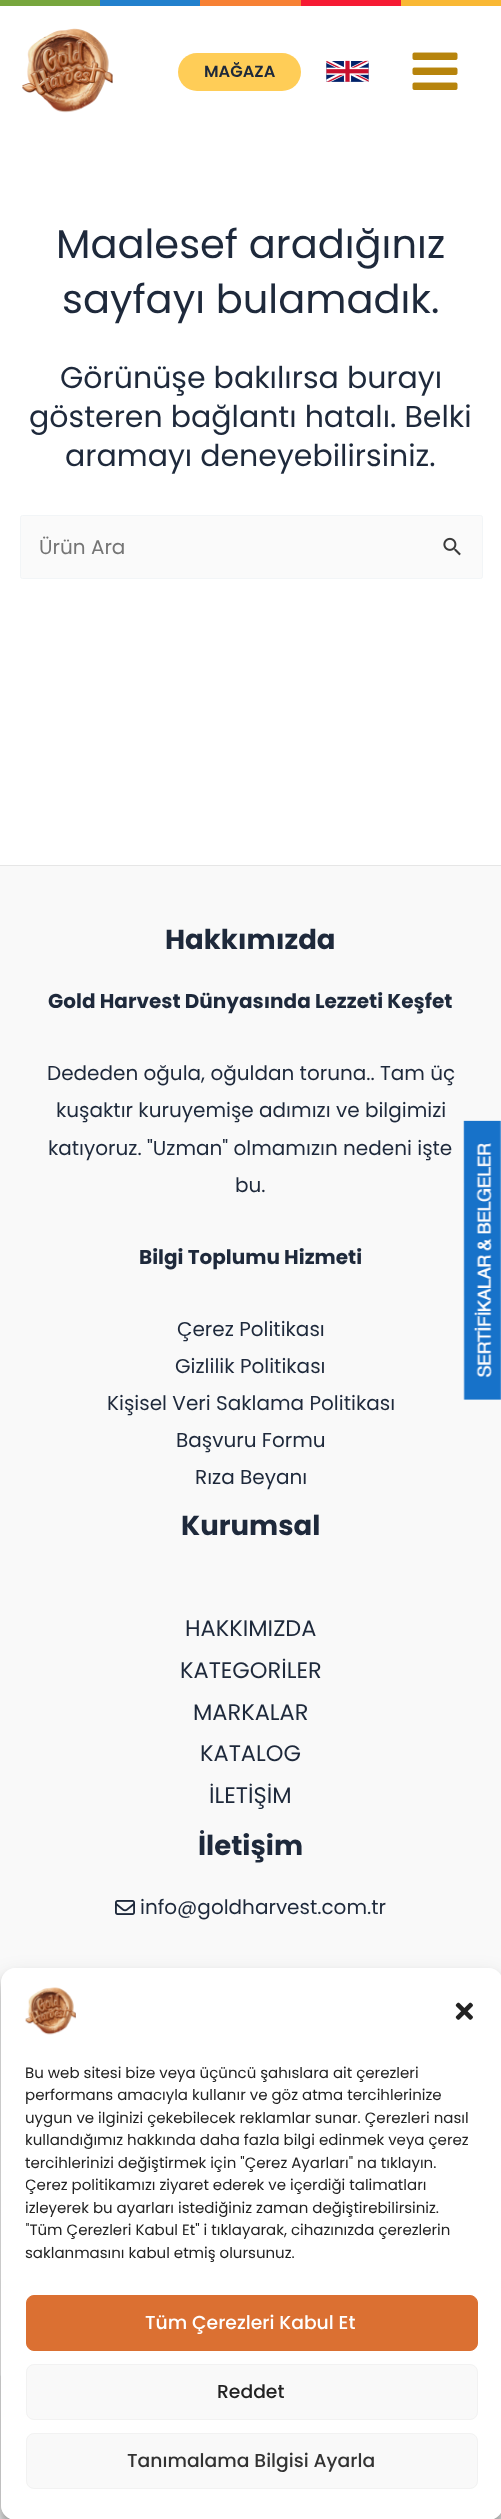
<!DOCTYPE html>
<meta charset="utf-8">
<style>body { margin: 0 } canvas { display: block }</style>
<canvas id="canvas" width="501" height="2519"></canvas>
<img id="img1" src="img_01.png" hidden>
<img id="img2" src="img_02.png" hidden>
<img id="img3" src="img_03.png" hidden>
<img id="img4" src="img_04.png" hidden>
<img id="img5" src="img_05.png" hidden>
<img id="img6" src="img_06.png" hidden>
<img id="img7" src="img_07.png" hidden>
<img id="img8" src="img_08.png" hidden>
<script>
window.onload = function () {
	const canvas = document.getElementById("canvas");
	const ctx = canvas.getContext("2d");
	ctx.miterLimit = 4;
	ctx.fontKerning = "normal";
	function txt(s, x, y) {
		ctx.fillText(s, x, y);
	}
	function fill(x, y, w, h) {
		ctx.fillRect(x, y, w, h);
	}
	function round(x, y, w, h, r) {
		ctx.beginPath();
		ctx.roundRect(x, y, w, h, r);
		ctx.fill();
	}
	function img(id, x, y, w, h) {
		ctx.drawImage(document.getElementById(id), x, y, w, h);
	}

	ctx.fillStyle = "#FFFFFF";
	fill(0, 0, 501, 2519);
	ctx.fillStyle = "#77A63D";
	fill(0, 0, 100, 6);
	ctx.fillStyle = "#2280CD";
	fill(100, 0, 100, 6);
	ctx.fillStyle = "#F78134";
	fill(200, 0, 101, 6);
	ctx.fillStyle = "#F61A33";
	fill(301, 0, 100, 6);
	ctx.fillStyle = "#F9B834";
	fill(401, 0, 100, 6);
	img("img1", 22, 28, 91, 85);
	ctx.fillStyle = "#FFCD57";
	round(178, 53, 123, 38, 19);
	img("img2", 326, 60, 43, 22);
	img("img3", 412, 52, 46, 38);
	ctx.fillStyle = "#FAFAFA";
	ctx.beginPath();
	ctx.roundRect(20.5, 515.5, 462, 63, 2);
	ctx.fill();
	ctx.strokeStyle = "#F2F5F7";
	ctx.stroke();
	img("img4", 443, 537, 18, 19);
	ctx.fillStyle = "#F9F9F9";
	fill(0, 866, 501, 1509);
	ctx.fillStyle = "#E6E6E6";
	fill(0, 865, 501, 1);
	img("img5", 115, 1900, 20, 15);
	ctx.fillStyle = "#EEEEEE";
	fill(0, 2376, 501, 143);
	ctx.fillStyle = "#F2F5F7";
	fill(0, 2375, 1, 1);
	img("img6", 463, 1120, 38, 280);
	ctx.save();
	ctx.beginPath();
	ctx.moveTo(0, 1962);
	ctx.lineTo(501, 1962);
	ctx.lineTo(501, 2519);
	ctx.lineTo(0, 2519);
	ctx.closePath();
	ctx.moveTo(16, 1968);
	ctx.lineTo(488, 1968);
	ctx.bezierCurveTo(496.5, 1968, 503, 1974.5, 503, 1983);
	ctx.lineTo(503, 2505);
	ctx.bezierCurveTo(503, 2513.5, 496.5, 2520, 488, 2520);
	ctx.lineTo(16, 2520);
	ctx.bezierCurveTo(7.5, 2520, 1, 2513.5, 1, 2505);
	ctx.lineTo(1, 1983);
	ctx.bezierCurveTo(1, 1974.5, 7.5, 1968, 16, 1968);
	ctx.closePath();
	ctx.clip("evenodd");
	ctx.fillStyle = "rgba(0, 0, 0, 0.23)";
	ctx.filter = "blur(4px)";
	ctx.beginPath();
	ctx.roundRect(1, 1975, 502, 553, 15);
	ctx.fill();
	ctx.filter = "none";
	ctx.restore();
	ctx.save();
	ctx.beginPath();
	ctx.moveTo(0, 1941);
	ctx.lineTo(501, 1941);
	ctx.lineTo(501, 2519);
	ctx.lineTo(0, 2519);
	ctx.closePath();
	ctx.moveTo(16, 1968);
	ctx.lineTo(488, 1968);
	ctx.bezierCurveTo(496.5, 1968, 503, 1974.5, 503, 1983);
	ctx.lineTo(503, 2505);
	ctx.bezierCurveTo(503, 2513.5, 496.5, 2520, 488, 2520);
	ctx.lineTo(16, 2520);
	ctx.bezierCurveTo(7.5, 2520, 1, 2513.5, 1, 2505);
	ctx.lineTo(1, 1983);
	ctx.bezierCurveTo(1, 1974.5, 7.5, 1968, 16, 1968);
	ctx.closePath();
	ctx.clip("evenodd");
	ctx.fillStyle = "rgba(0, 0, 0, 0.19)";
	ctx.filter = "blur(12.5px)";
	ctx.beginPath();
	ctx.roundRect(1, 1980, 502, 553, 15);
	ctx.fill();
	ctx.filter = "none";
	ctx.restore();
	ctx.fillStyle = "#FFFFFF";
	round(1, 1968, 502, 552, 15);
	img("img7", 25, 1987, 51, 48);
	img("img8", 455, 2002, 18, 18);
	ctx.fillStyle = "#DB7032";
	ctx.beginPath();
	ctx.roundRect(26.5, 2295.5, 451, 55, 7.5);
	ctx.fill();
	ctx.strokeStyle = "#DB7032";
	ctx.stroke();
	ctx.fillStyle = "#F9F9F9";
	ctx.beginPath();
	ctx.roundRect(26.5, 2364.5, 451, 55, 7.5);
	ctx.fill();
	ctx.strokeStyle = "#F2F2F2";
	ctx.stroke();
	ctx.beginPath();
	ctx.roundRect(26.5, 2433.5, 451, 55, 7.5);
	ctx.fill();
	ctx.stroke();
	ctx.font = "600 16.25px Poppins";
	ctx.fillStyle = "#1E293B";
	txt("MAĞAZA", 204, 77);
	ctx.font = "40px Poppins";
	txt("Maalesef aradığınız", 56, 258);
	txt("sayfayı bulamadık.", 62, 313);
	ctx.font = "30px Poppins";
	txt("Görünüşe bakılırsa burayı", 60, 388);
	txt("gösteren bağlantı hatalı. Belki", 29, 427);
	txt("aramayı deneyebilirsiniz.", 65, 466);
	ctx.font = "20px Poppins";
	ctx.fillStyle = "#757575";
	txt("Ürün Ara", 39, 554);
	ctx.font = "bold 27.5px Poppins";
	ctx.fillStyle = "#1E293B";
	txt("Hakkımızda", 165, 949);
	ctx.font = "bold 20px Poppins";
	txt("Gold Harvest Dünyasında Lezzeti Keşfet", 48, 1008);
	ctx.font = "20px Poppins";
	txt("Dededen oğula, oğuldan toruna.. Tam üç", 47, 1080);
	txt("kuşaktır kuruyemişe adımızı ve bilgimizi", 56, 1117);
	txt("katıyoruz. \"Uzman\" olmamızın nedeni işte", 48, 1155);
	txt("bu.", 235, 1192);
	ctx.font = "bold 20px Poppins";
	txt("Bilgi Toplumu Hizmeti", 139, 1264);
	ctx.font = "20px Poppins";
	txt("Çerez Politikası", 177, 1336);
	txt("Gizlilik Politikası", 175, 1373);
	txt("Kişisel Veri Saklama Politikası", 107, 1410);
	txt("Başvuru Formu", 176, 1447);
	txt("Rıza Beyanı", 195, 1484);
	ctx.font = "bold 27.5px Poppins";
	txt("Kurumsal", 181, 1535);
	ctx.font = "22.5px Poppins";
	txt("HAKKIMIZDA", 185, 1636);
	txt("KATEGORİLER", 180, 1678);
	txt("MARKALAR", 193, 1720);
	txt("KATALOG", 200, 1761);
	txt("İLETİŞİM", 209, 1803);
	ctx.font = "bold 27.5px Poppins";
	txt("İletişim", 198, 1855);
	ctx.font = "20px Poppins";
	txt("info@goldharvest.com.tr", 140, 1914);
	ctx.font = "15px Poppins";
	ctx.fillStyle = "#222222";
	txt("Bu web sitesi bize veya üçüncü şahıslara ait çerezleri", 25, 2078);
	txt("performans amacıyla kullanır ve göz atma tercihlerinize", 25, 2100);
	txt("uygun ve ilginizi çekebilecek reklamlar sunar. Çerezleri nasıl", 25, 2123);
	txt("kullandığımız hakkında daha fazla bilgi edinmek veya çerez", 25, 2145);
	txt("tercihlerinizi değiştirmek için \"Çerez Ayarları\" na tıklayın.", 25, 2168);
	ctx.save();
	ctx.beginPath();
	ctx.rect(26, 2061, 452, 209);
	ctx.clip();
	txt("Çerez politikamızı ziyaret ederek ve içerdiği talimatları", 25, 2190);
	ctx.restore();
	txt("izleyerek bu ayarları istediğiniz zaman değiştirebilirsiniz.", 25, 2213);
	ctx.save();
	ctx.beginPath();
	ctx.rect(26, 2061, 452, 209);
	ctx.clip();
	txt("\"Tüm Çerezleri Kabul Et\" i tıklayarak, cihazınızda çerezlerin", 25, 2235);
	ctx.restore();
	txt("saklanmasını kabul etmiş olursunuz.", 25, 2258);
	ctx.font = "500 18.75px Poppins";
	ctx.fillStyle = "#FFFFFF";
	txt("Tüm Çerezleri Kabul Et", 145, 2329);
	ctx.fillStyle = "#222222";
	txt("Reddet", 217, 2398);
	ctx.fillStyle = "#333333";
	txt("Tanımalama Bilgisi Ayarla", 127, 2467);
};
</script>
